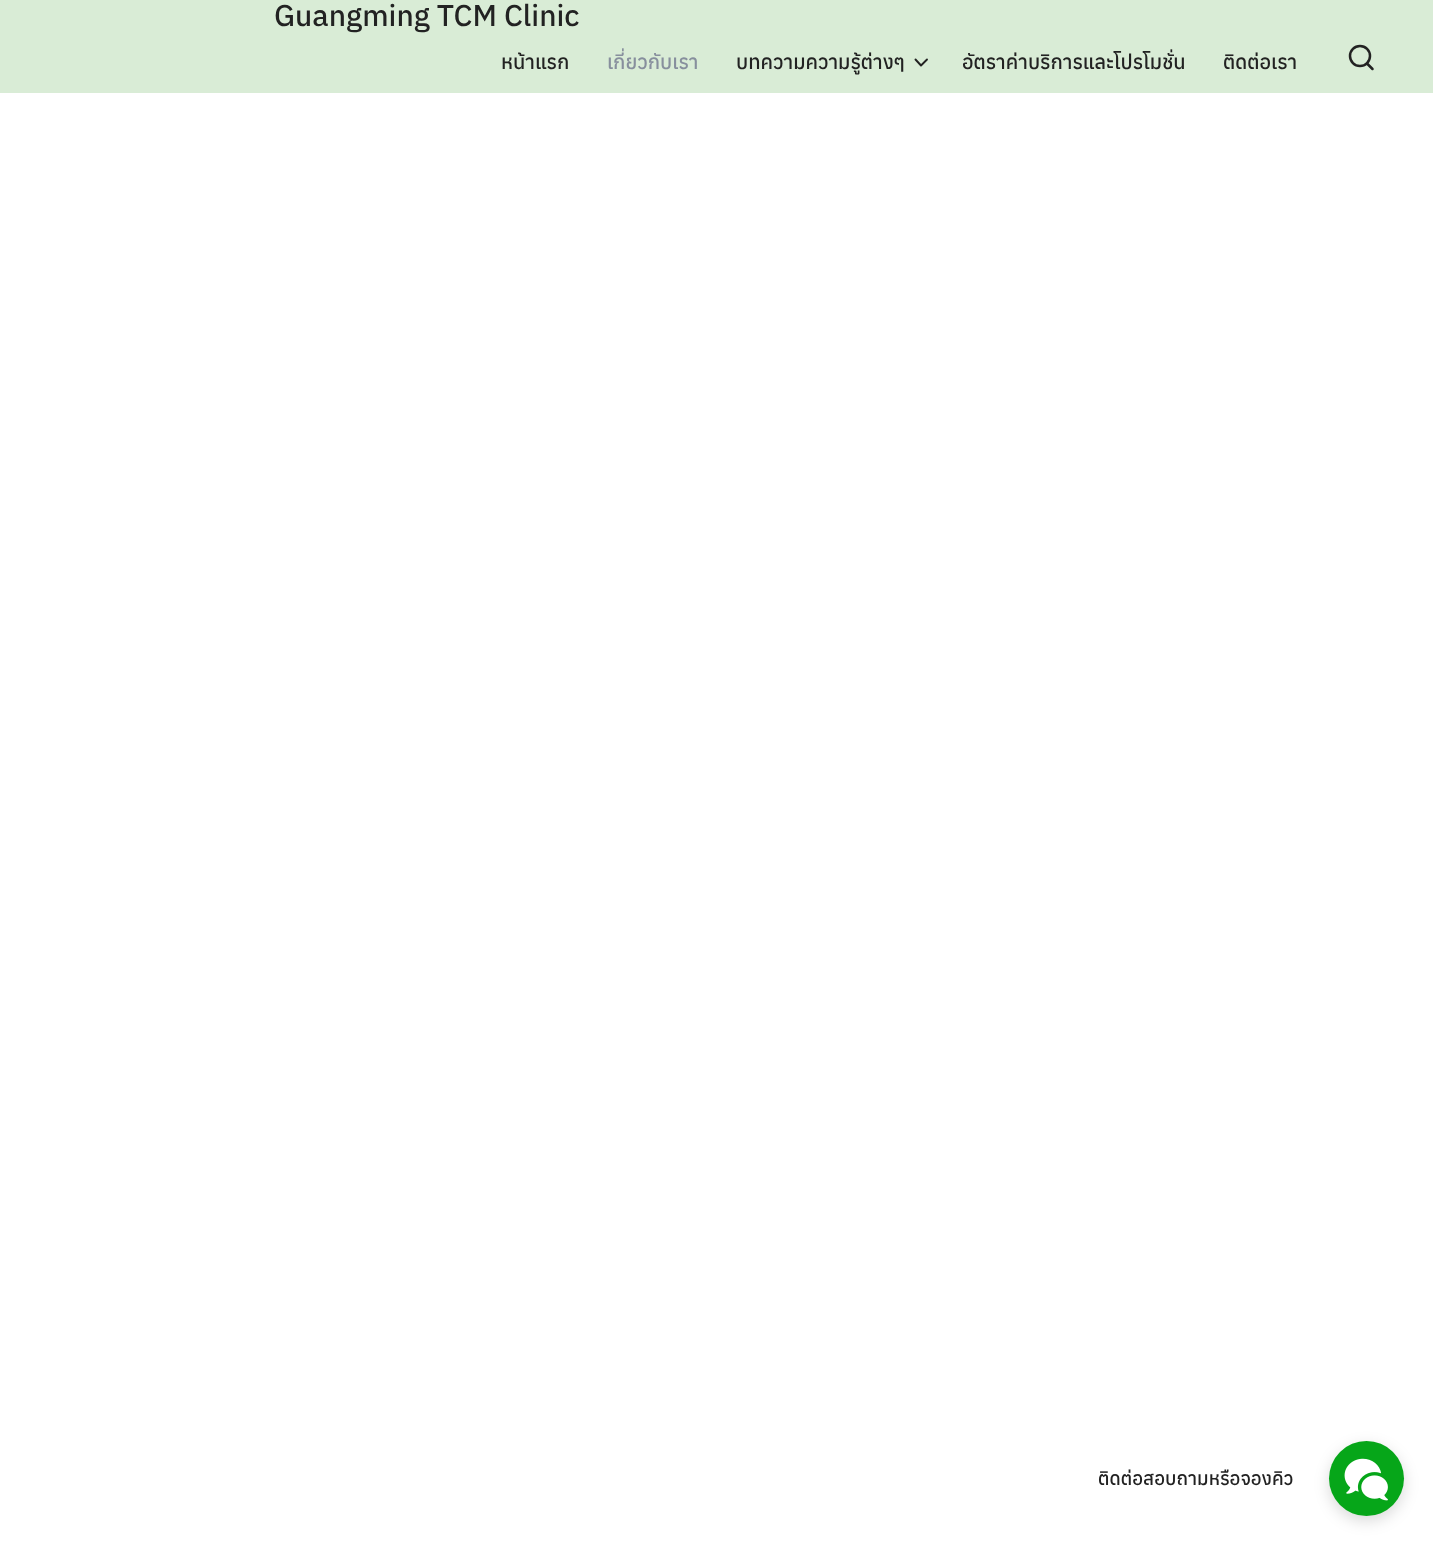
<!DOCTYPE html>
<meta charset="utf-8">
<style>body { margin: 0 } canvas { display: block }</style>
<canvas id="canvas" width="1433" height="1546"></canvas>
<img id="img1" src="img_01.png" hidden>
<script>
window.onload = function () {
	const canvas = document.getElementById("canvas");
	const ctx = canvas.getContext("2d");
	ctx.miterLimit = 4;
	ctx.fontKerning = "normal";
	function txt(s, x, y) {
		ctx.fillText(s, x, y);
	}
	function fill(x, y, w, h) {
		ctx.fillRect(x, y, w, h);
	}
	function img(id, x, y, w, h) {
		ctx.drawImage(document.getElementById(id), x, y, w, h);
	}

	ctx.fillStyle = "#FFFFFF";
	fill(0, 0, 1433, 1546);
	ctx.fillStyle = "#D9ECD6";
	fill(0, 0, 1433, 93);
	ctx.beginPath();
	ctx.moveTo(915.5, 59.5);
	ctx.lineTo(921, 65.5);
	ctx.lineTo(927, 59.5);
	ctx.strokeStyle = "#222222";
	ctx.lineWidth = 1.9;
	ctx.lineCap = "round";
	ctx.lineJoin = "round";
	ctx.stroke();
	ctx.beginPath();
	ctx.arc(1360, 56, 10, 0, Math.PI * 2);
	ctx.lineWidth = 2.5;
	ctx.stroke();
	ctx.beginPath();
	ctx.moveTo(1372.5, 69);
	ctx.lineTo(1367, 63.5);
	ctx.stroke();
	ctx.fillStyle = "rgba(0, 0, 0, 0.15)";
	ctx.filter = "blur(7.5px)";
	ctx.beginPath();
	ctx.roundRect(1329, 1446, 75, 75, 37.5);
	ctx.fill();
	ctx.filter = "none";
	ctx.fillStyle = "#06A619";
	ctx.beginPath();
	ctx.arc(1366.5, 1478.5, 37.5, 0, Math.PI * 2);
	ctx.fill();
	img("img1", 1344, 1458, 44, 43);
	ctx.font = "500 30px Anuphan";
	ctx.fillStyle = "#222222";
	txt("Guangming TCM Clinic", 274, 26);
	ctx.font = "500 20px Anuphan";
	txt("หน้าแรก", 501, 69);
	ctx.fillStyle = "#878F9D";
	txt("เกี่ยวกับเรา", 607, 69);
	ctx.fillStyle = "#222222";
	txt("บทความความรู้ต่างๆ", 736, 69);
	txt("อัตราค่าบริการและโปรโมชั่น", 962, 69);
	txt("ติดต่อเรา", 1223, 69);
	ctx.font = "500 18.75px Anuphan";
	txt("ติดต่อสอบถามหรือจองคิว", 1098, 1485);
};
</script>
